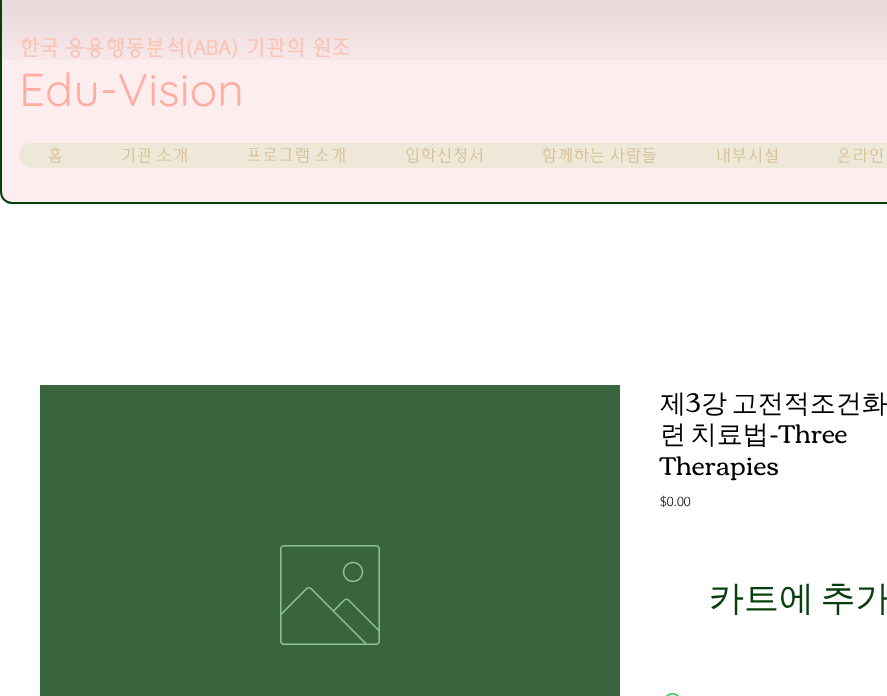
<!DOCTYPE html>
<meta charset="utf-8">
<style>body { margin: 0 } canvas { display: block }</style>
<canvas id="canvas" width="887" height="696"></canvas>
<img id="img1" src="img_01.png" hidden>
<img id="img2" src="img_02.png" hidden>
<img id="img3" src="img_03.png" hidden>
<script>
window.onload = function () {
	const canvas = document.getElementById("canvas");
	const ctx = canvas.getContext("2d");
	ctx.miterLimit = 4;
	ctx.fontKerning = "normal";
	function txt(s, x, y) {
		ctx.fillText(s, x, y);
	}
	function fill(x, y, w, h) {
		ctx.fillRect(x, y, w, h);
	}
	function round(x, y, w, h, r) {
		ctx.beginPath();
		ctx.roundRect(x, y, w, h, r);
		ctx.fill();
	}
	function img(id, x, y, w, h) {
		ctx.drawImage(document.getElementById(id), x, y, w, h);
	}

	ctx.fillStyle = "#FFFFFF";
	fill(0, 0, 887, 696);
	ctx.fillStyle = "#FEEDEE";
	round(0, -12, 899, 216, 12);
	img("img1", 2, 0, 885, 60);
	ctx.beginPath();
	ctx.roundRect(1, -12, 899, 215, 11);
	ctx.strokeStyle = "#063F0D";
	ctx.lineWidth = 2;
	ctx.stroke();
	ctx.fillStyle = "#EEE8D8";
	round(19, 143, 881, 25, 12.5);
	ctx.fillStyle = "#38653D";
	fill(40, 385, 580, 311);
	img("img2", 280, 545, 100, 100);
	img("img3", 666, 693, 13, 3);
	ctx.font = "bold 20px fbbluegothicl";
	ctx.fillStyle = "#F9C5B4";
	txt("한국 응용행동분석(ABA) 기관의 원조", 19, 55);
	ctx.font = "46px Quicksand";
	ctx.fillStyle = "#FFACA1";
	txt("Edu-Vision", 19, 106);
	ctx.font = "16px fbbluegothicl";
	ctx.fillStyle = "#D6BD90";
	txt("홈", 47, 161);
	txt("기관 소개", 120, 161);
	txt("프로그램 소개", 246, 161);
	txt("입학신청서", 404, 161);
	txt("함께하는 사람들", 541, 161);
	txt("내부시설", 715, 161);
	txt("온라인", 836, 161);
	ctx.font = "500 26px WenQuanYi Zen Hei";
	ctx.fillStyle = "#000000";
	txt("제", 660, 412);
	ctx.font = "26px Corben";
	txt("3", 686, 412);
	ctx.wordSpacing = "-3px";
	ctx.font = "500 26px WenQuanYi Zen Hei";
	txt("강 고전적조건화", 701, 412);
	txt("련 치료법", 660, 443);
	ctx.wordSpacing = "0px";
	ctx.font = "26px Corben";
	txt("-Three", 769, 443);
	txt("Therapies", 660, 475);
	ctx.font = "300 13px 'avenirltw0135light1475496'";
	txt("$0.00", 660, 506);
	ctx.wordSpacing = "-4px";
	ctx.font = "500 35px WenQuanYi Zen Hei";
	ctx.fillStyle = "#063F0D";
	txt("카트에 추가", 709, 610);
};
</script>
